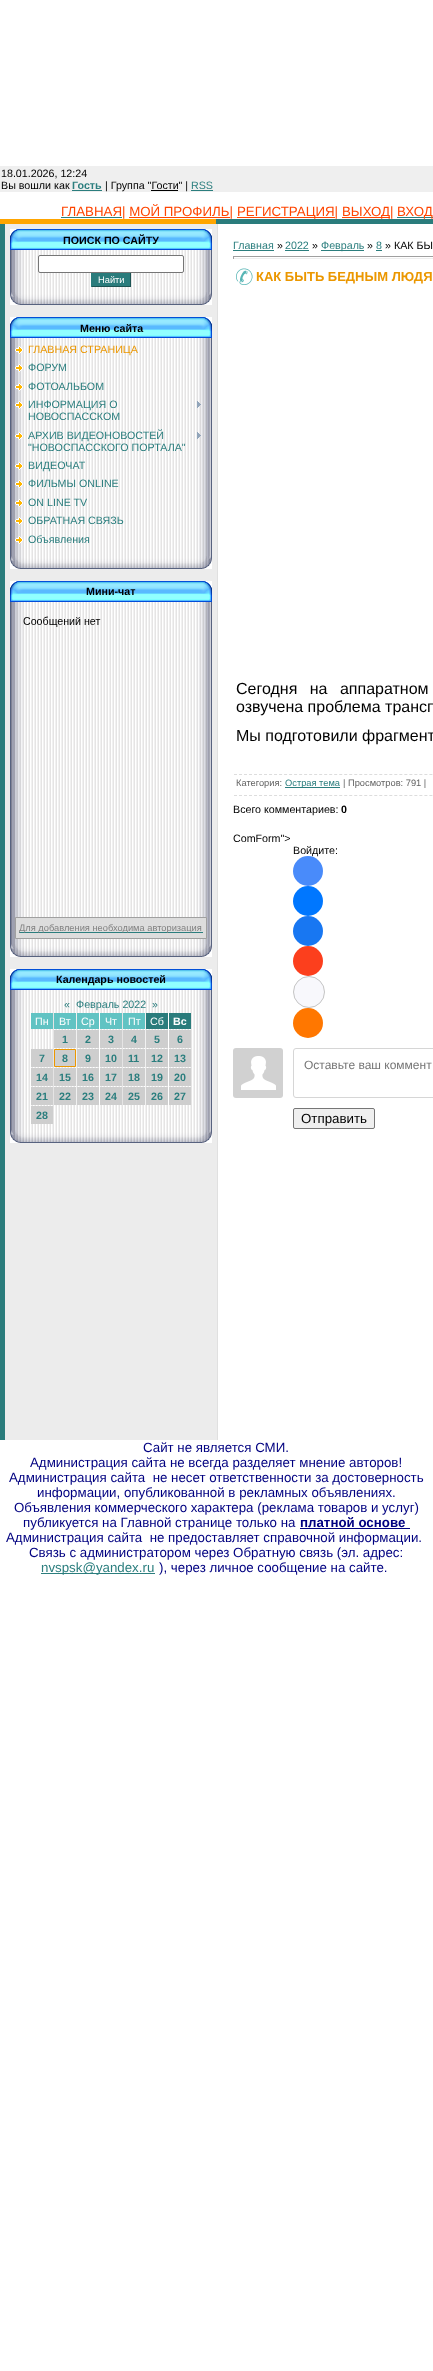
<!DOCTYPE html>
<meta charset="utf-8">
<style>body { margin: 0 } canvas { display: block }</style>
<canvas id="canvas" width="433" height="2371"></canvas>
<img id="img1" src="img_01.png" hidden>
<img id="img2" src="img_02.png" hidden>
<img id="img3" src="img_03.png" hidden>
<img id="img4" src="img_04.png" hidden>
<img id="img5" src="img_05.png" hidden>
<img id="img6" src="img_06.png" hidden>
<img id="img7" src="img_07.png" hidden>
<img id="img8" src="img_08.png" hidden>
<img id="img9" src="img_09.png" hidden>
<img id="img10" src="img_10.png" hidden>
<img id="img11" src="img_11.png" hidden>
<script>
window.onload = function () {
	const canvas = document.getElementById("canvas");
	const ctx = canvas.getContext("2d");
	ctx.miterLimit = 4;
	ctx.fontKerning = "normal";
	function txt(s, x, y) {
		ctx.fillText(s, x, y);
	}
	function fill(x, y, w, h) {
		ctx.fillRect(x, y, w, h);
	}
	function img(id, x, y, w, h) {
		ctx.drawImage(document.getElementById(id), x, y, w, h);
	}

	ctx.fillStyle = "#FFFFFF";
	fill(0, 0, 433, 2371);
	ctx.fillStyle = "#EFEFEF";
	fill(0, 166, 433, 26);
	ctx.fillStyle = "#2B7E7E";
	fill(72, 190, 30, 1);
	fill(191, 190, 22, 1);
	ctx.fillStyle = "#000000";
	fill(151, 190, 27, 1);
	ctx.fillStyle = "#2B7E7E";
	fill(61, 217, 61, 1);
	ctx.fillStyle = "#FF4500";
	fill(237, 217, 98, 1);
	fill(342, 217, 48, 1);
	ctx.fillStyle = "#2B7E7E";
	fill(397, 217, 36, 1);
	ctx.fillStyle = "#FF4500";
	fill(129, 217, 101, 1);
	ctx.fillStyle = "#FFA500";
	fill(0, 219, 216, 5);
	ctx.fillStyle = "#2A7C7C";
	fill(216, 219, 217, 5);
	ctx.fillStyle = "#ECECEC";
	fill(5, 224, 212, 1216);
	ctx.fillStyle = "#E0E0E0";
	fill(217, 224, 1, 1216);
	ctx.fillStyle = "#2A7C7C";
	fill(0, 224, 5, 1216);
	img("img1", 10, 229, 202, 21);
	img("img2", 10, 250, 202, 42);
	ctx.fillStyle = "#FFFFFF";
	ctx.beginPath();
	ctx.roundRect(38.5, 255.5, 145, 17, 1.5);
	ctx.fill();
	ctx.strokeStyle = "#767676";
	ctx.stroke();
	ctx.fillStyle = "#2A7C7C";
	fill(92, 273, 38, 13);
	ctx.fillStyle = "#1C5353";
	fill(130, 273, 1, 14);
	fill(91, 286, 40, 1);
	ctx.fillStyle = "#2A7C7C";
	fill(91, 273, 1, 14);
	img("img3", 10, 292, 202, 13);
	img("img1", 10, 317, 202, 21);
	img("img4", 10, 338, 202, 218);
	img("img5", 15, 346, 8, 8);
	img("img5", 15, 364, 8, 8);
	img("img5", 15, 383, 8, 8);
	img("img5", 15, 401, 8, 8);
	img("img6", 197, 401, 4, 7);
	img("img5", 15, 432, 8, 8);
	img("img6", 197, 432, 4, 7);
	img("img5", 15, 462, 8, 8);
	img("img5", 15, 480, 8, 8);
	img("img5", 15, 499, 8, 8);
	img("img5", 15, 517, 8, 8);
	img("img5", 15, 536, 8, 8);
	img("img3", 10, 556, 202, 13);
	img("img1", 10, 581, 202, 21);
	img("img7", 10, 602, 202, 342);
	img("img8", 23, 616, 78, 11);
	ctx.fillStyle = "#DDDDDD";
	ctx.beginPath();
	ctx.rect(15.5, 917.5, 191, 21);
	ctx.fill();
	ctx.strokeStyle = "#A0A0A0";
	ctx.stroke();
	ctx.fillStyle = "#2B7E7E";
	fill(19, 932, 184, 1);
	img("img3", 10, 944, 202, 13);
	img("img1", 10, 969, 202, 21);
	img("img9", 10, 990, 202, 140);
	ctx.fillStyle = "#61C3C3";
	fill(31, 1013, 22, 16);
	fill(54, 1013, 22, 16);
	fill(77, 1013, 22, 16);
	fill(100, 1013, 22, 16);
	fill(123, 1013, 22, 16);
	ctx.fillStyle = "#2A7C7C";
	fill(146, 1013, 22, 16);
	fill(169, 1013, 22, 16);
	ctx.fillStyle = "#CECECE";
	fill(54, 1030, 22, 18);
	fill(77, 1030, 22, 18);
	fill(100, 1030, 22, 18);
	fill(123, 1030, 22, 18);
	fill(146, 1030, 22, 18);
	fill(169, 1030, 22, 18);
	fill(31, 1049, 22, 18);
	ctx.beginPath();
	ctx.rect(54.5, 1049.5, 21, 17);
	ctx.fill();
	ctx.strokeStyle = "#EB9700";
	ctx.stroke();
	fill(77, 1049, 22, 18);
	fill(100, 1049, 22, 18);
	fill(123, 1049, 22, 18);
	fill(146, 1049, 22, 18);
	fill(169, 1049, 22, 18);
	fill(31, 1068, 22, 18);
	fill(54, 1068, 22, 18);
	fill(77, 1068, 22, 18);
	fill(100, 1068, 22, 18);
	fill(123, 1068, 22, 18);
	fill(146, 1068, 22, 18);
	fill(169, 1068, 22, 18);
	fill(31, 1087, 22, 18);
	fill(54, 1087, 22, 18);
	fill(77, 1087, 22, 18);
	fill(100, 1087, 22, 18);
	fill(123, 1087, 22, 18);
	fill(146, 1087, 22, 18);
	fill(169, 1087, 22, 18);
	fill(31, 1106, 22, 18);
	img("img3", 10, 1130, 202, 13);
	ctx.fillStyle = "#2B7E7E";
	fill(233, 250, 41, 1);
	fill(285, 250, 24, 1);
	fill(321, 250, 43, 1);
	fill(376, 250, 6, 1);
	ctx.fillStyle = "#9F9F9F";
	fill(233, 256, 200, 1);
	ctx.fillStyle = "#EEEEEE";
	fill(233, 258, 200, 1);
	ctx.fillStyle = "#9F9F9F";
	fill(233, 256, 1, 3);
	img("img10", 236, 268, 17, 17);
	ctx.beginPath();
	ctx.moveTo(234, 774.5);
	ctx.lineTo(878, 774.5);
	ctx.strokeStyle = "#DDDDDD";
	ctx.setLineDash([3, 2.01]);
	ctx.stroke();
	ctx.beginPath();
	ctx.moveTo(234, 795.5);
	ctx.lineTo(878, 795.5);
	ctx.stroke();
	ctx.fillStyle = "#2B7E7E";
	fill(285, 787, 55, 1);
	ctx.fillStyle = "#0077FF";
	ctx.beginPath();
	ctx.arc(308, 901, 15, 0, Math.PI * 2);
	ctx.fill();
	ctx.fillStyle = "#1877F2";
	ctx.beginPath();
	ctx.arc(308, 931, 15, 0, Math.PI * 2);
	ctx.fill();
	ctx.fillStyle = "#FC3F1D";
	ctx.beginPath();
	ctx.arc(308, 961, 15, 0, Math.PI * 2);
	ctx.fill();
	ctx.fillStyle = "#F8F8FC";
	ctx.beginPath();
	ctx.arc(309, 992, 15.5, 0, Math.PI * 2);
	ctx.fill();
	ctx.strokeStyle = "#C4C4C4";
	ctx.setLineDash([]);
	ctx.stroke();
	ctx.fillStyle = "#FF7700";
	ctx.beginPath();
	ctx.arc(308, 1023, 15, 0, Math.PI * 2);
	ctx.fill();
	img("img11", 233, 1048, 50, 50);
	ctx.beginPath();
	ctx.roundRect(293.5, 1048.5, 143, 49, 2.5);
	ctx.strokeStyle = "#D6D6D6";
	ctx.stroke();
	ctx.fillStyle = "#EFEFEF";
	ctx.beginPath();
	ctx.roundRect(293.5, 1108.5, 81, 20, 1.5);
	ctx.fill();
	ctx.strokeStyle = "#767676";
	ctx.stroke();
	ctx.fillStyle = "#000080";
	fill(300, 1528, 110, 1);
	ctx.fillStyle = "#2B7E7E";
	fill(41, 1573, 114, 1);
	ctx.font = "10.7px Liberation Sans";
	ctx.fillStyle = "#000000";
	txt("18.01.2026, 12:24", 1, 177);
	txt("Вы вошли как", 1, 189);
	ctx.font = "bold 10.7px Liberation Sans";
	ctx.fillStyle = "#2B7E7E";
	txt("Гость", 72, 189);
	ctx.font = "10.7px Liberation Sans";
	ctx.fillStyle = "#000000";
	txt("| Группа \"Гости\" |", 105, 189);
	ctx.fillStyle = "#2B7E7E";
	txt("RSS", 191, 189);
	ctx.font = "13.3px Liberation Sans";
	ctx.fillStyle = "#FF4500";
	txt("ГЛАВНАЯ| МОЙ ПРОФИЛЬ|", 61, 216);
	txt("РЕГИСТРАЦИЯ|", 237, 216);
	txt("ВЫХОД|", 342, 216);
	txt("ВХОД", 397, 216);
	ctx.font = "bold 10.7px Liberation Sans";
	ctx.fillStyle = "#000000";
	txt("ПОИСК ПО САЙТУ", 63, 244);
	ctx.font = "9.3px Liberation Sans";
	ctx.fillStyle = "#FFFFFF";
	txt("Найти", 98, 283);
	ctx.font = "bold 10.7px Liberation Sans";
	ctx.fillStyle = "#000000";
	txt("Меню сайта", 80, 332);
	ctx.font = "10.7px Liberation Sans";
	ctx.fillStyle = "#EB9700";
	txt("ГЛАВНАЯ СТРАНИЦА", 28, 353);
	ctx.fillStyle = "#2B7E7E";
	txt("ФОРУМ", 28, 371);
	txt("ФОТОАЛЬБОМ", 28, 390);
	txt("ИНФОРМАЦИЯ О", 28, 408);
	txt("НОВОСПАССКОМ", 28, 420);
	txt("АРХИВ ВИДЕОНОВОСТЕЙ", 28, 439);
	txt("\"НОВОСПАССКОГО ПОРТАЛА\"", 28, 451);
	txt("ВИДЕОЧАТ", 28, 469);
	txt("ФИЛЬМЫ ОNLINE", 28, 487);
	txt("ON LINE TV", 28, 506);
	txt("ОБРАТНАЯ СВЯЗЬ", 28, 524);
	txt("Объявления", 28, 543);
	ctx.font = "bold 10.7px Liberation Sans";
	ctx.fillStyle = "#000000";
	txt("Мини-чат", 86, 595);
	ctx.font = "9.3px Liberation Sans";
	ctx.fillStyle = "#828282";
	txt("Для добавления необходима авторизация", 19, 931);
	ctx.font = "bold 10.7px Liberation Sans";
	ctx.fillStyle = "#000000";
	txt("Календарь новостей", 56, 983);
	ctx.font = "10.7px Liberation Sans";
	ctx.fillStyle = "#2B7E7E";
	txt("«", 64, 1008);
	txt("Февраль 2022", 76, 1008);
	txt("»", 152, 1008);
	ctx.fillStyle = "#FFFFFF";
	txt("Пн", 35, 1025);
	txt("Вт", 59, 1025);
	txt("Ср", 81, 1025);
	txt("Чт", 105, 1025);
	txt("Пт", 128, 1025);
	txt("Сб", 150, 1025);
	ctx.font = "bold 10.7px Liberation Sans";
	txt("Вс", 173, 1025);
	ctx.fillStyle = "#2B7E7E";
	txt("1", 62, 1043);
	txt("2", 85, 1043);
	txt("3", 108, 1043);
	txt("4", 131, 1043);
	txt("5", 154, 1043);
	txt("6", 177, 1043);
	txt("7", 39, 1062);
	txt("8", 62, 1062);
	txt("9", 85, 1062);
	txt("10", 105, 1062);
	txt("11", 128, 1062);
	txt("12", 151, 1062);
	txt("13", 174, 1062);
	txt("14", 36, 1081);
	txt("15", 59, 1081);
	txt("16", 82, 1081);
	txt("17", 105, 1081);
	txt("18", 128, 1081);
	txt("19", 151, 1081);
	txt("20", 174, 1081);
	txt("21", 36, 1100);
	txt("22", 59, 1100);
	txt("23", 82, 1100);
	txt("24", 105, 1100);
	txt("25", 128, 1100);
	txt("26", 151, 1100);
	txt("27", 174, 1100);
	txt("28", 36, 1119);
	ctx.font = "10.7px Liberation Sans";
	txt("Главная", 233, 249);
	ctx.fillStyle = "#000000";
	txt("»", 277, 249);
	ctx.fillStyle = "#2B7E7E";
	txt("2022", 285, 249);
	ctx.fillStyle = "#000000";
	txt("»", 312, 249);
	ctx.fillStyle = "#2B7E7E";
	txt("Февраль", 321, 249);
	ctx.fillStyle = "#000000";
	txt("»", 367, 249);
	ctx.fillStyle = "#2B7E7E";
	txt("8", 376, 249);
	ctx.fillStyle = "#000000";
	txt("» КАК БЫ", 385, 249);
	ctx.font = "bold 13px Liberation Sans";
	ctx.fillStyle = "#EB9700";
	txt("КАК БЫТЬ БЕДНЫМ ЛЮДЯ", 256, 281);
	ctx.wordSpacing = "8px";
	ctx.font = "16px Liberation Sans";
	ctx.fillStyle = "#000000";
	txt("Сегодня на аппаратном", 236, 694);
	ctx.wordSpacing = "0px";
	txt("озвучена проблема трансп", 236, 712);
	txt("Мы подготовили фрагмент", 236, 741);
	ctx.font = "9.3px Liberation Sans";
	ctx.fillStyle = "#636363";
	txt("Категория:", 236, 786);
	ctx.fillStyle = "#2B7E7E";
	txt("Острая тема", 285, 786);
	ctx.fillStyle = "#636363";
	txt("| Просмотров: 791 |", 343, 786);
	ctx.font = "10.7px Liberation Sans";
	ctx.fillStyle = "#000000";
	txt("Всего комментариев:", 233, 813);
	ctx.font = "bold 10.7px Liberation Sans";
	txt("0", 341, 813);
	ctx.font = "10.7px Liberation Sans";
	txt("ComForm\">", 233, 842);
	txt("Войдите:", 293, 854);
	ctx.fillStyle = "#498BFA";
	ctx.beginPath();
	ctx.arc(308, 871, 15, 0, Math.PI * 2);
	ctx.fill();
	ctx.font = "12px Liberation Sans";
	ctx.fillStyle = "#757575";
	txt("Оставьте ваш коммент", 304, 1069);
	ctx.font = "13.3px Liberation Sans";
	ctx.fillStyle = "#000000";
	txt("Отправить", 301, 1123);
	ctx.fillStyle = "#000080";
	txt("Сайт не является СМИ.", 143, 1452);
	txt("Администрация сайта не всегда разделяет мнение авторов!", 30, 1467);
	txt("Администрация сайта  не несет ответственности за достоверность", 9, 1482);
	txt("информации, опубликованной в рекламных объявлениях.", 37, 1497);
	txt("Объявления коммерческого характера (реклама товаров и услуг)", 14, 1512);
	txt("публикуется на Главной странице только на", 23, 1527);
	ctx.font = "bold 13.3px Liberation Sans";
	txt("платной основе", 300, 1527);
	ctx.font = "13.3px Liberation Sans";
	txt("Администрация сайта  не предоставляет справочной информации.", 6, 1542);
	txt("Связь с администратором через Обратную связь (эл. адрес:", 29, 1557);
	ctx.fillStyle = "#2B7E7E";
	txt("nvspsk@yandex.ru", 41, 1572);
	ctx.fillStyle = "#000080";
	txt("), через личное сообщение на сайте.", 159, 1572);
};
</script>
